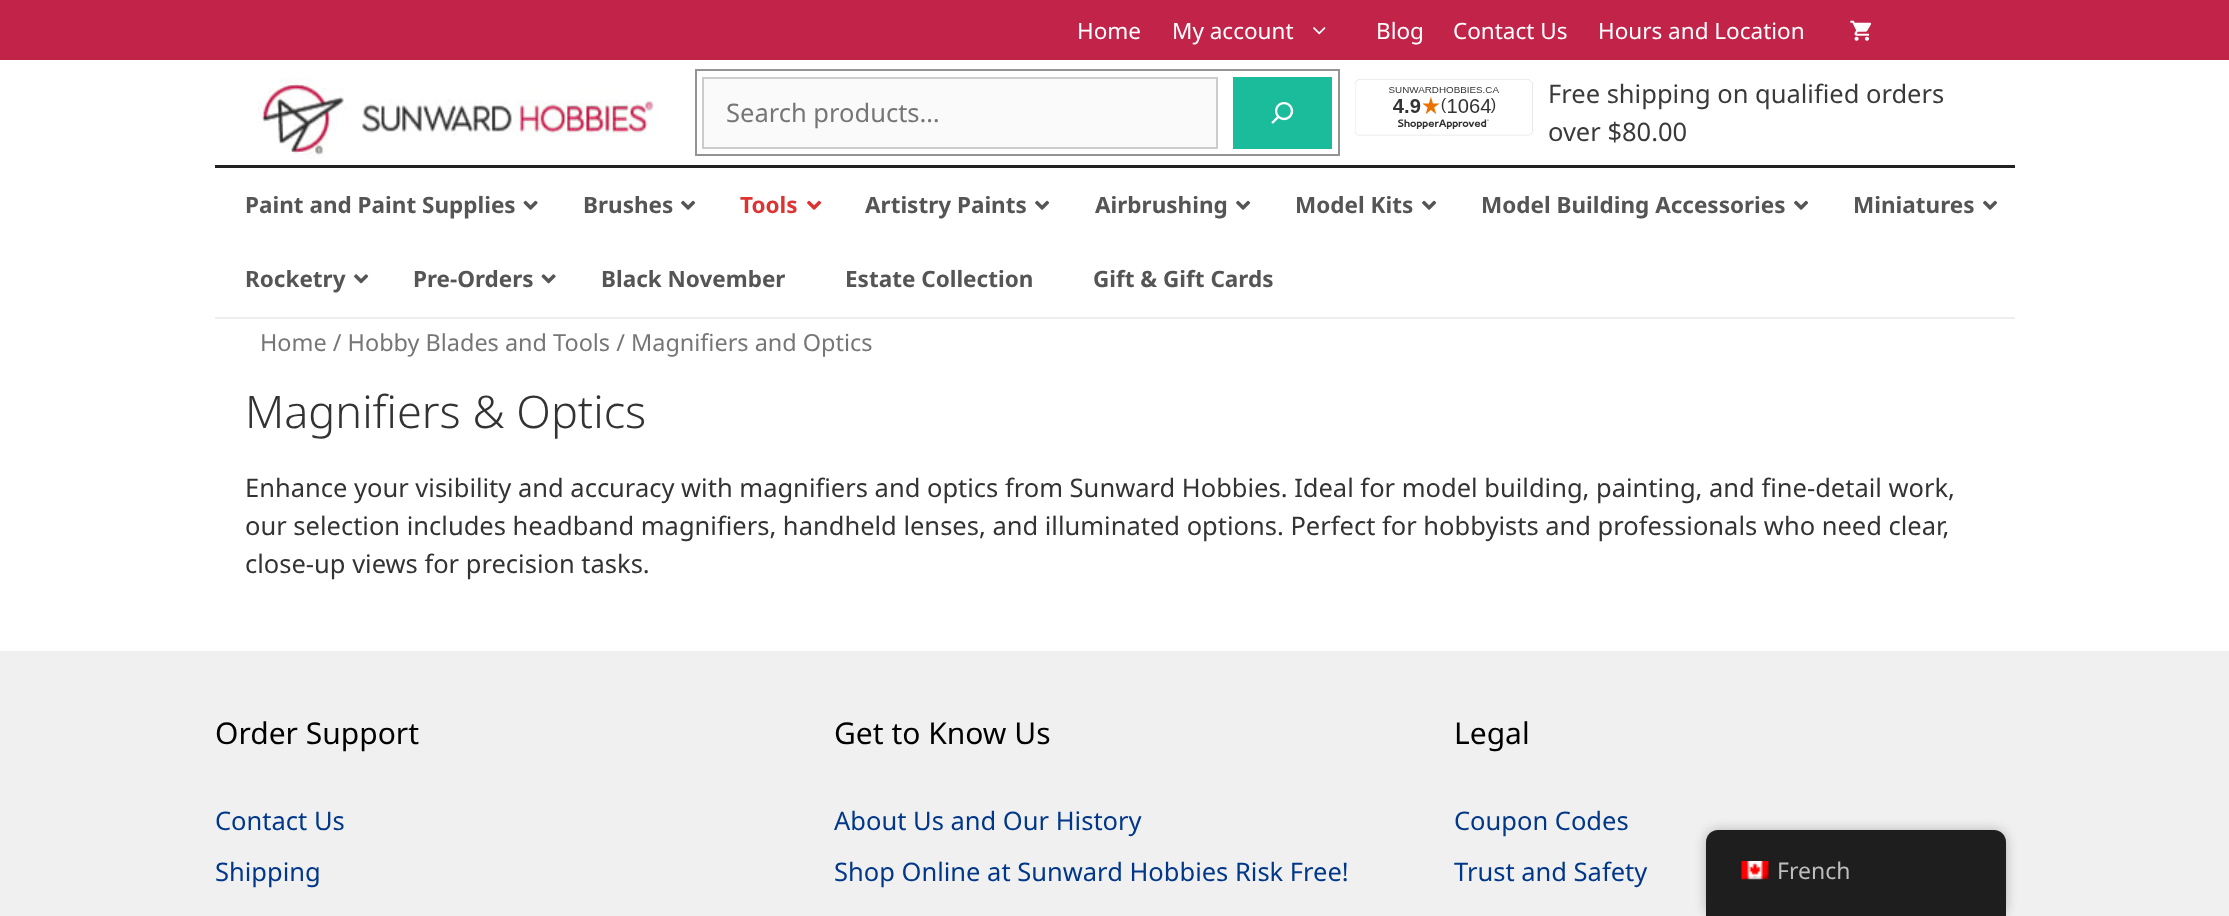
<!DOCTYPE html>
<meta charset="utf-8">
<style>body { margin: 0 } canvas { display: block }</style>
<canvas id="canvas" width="2229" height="916"></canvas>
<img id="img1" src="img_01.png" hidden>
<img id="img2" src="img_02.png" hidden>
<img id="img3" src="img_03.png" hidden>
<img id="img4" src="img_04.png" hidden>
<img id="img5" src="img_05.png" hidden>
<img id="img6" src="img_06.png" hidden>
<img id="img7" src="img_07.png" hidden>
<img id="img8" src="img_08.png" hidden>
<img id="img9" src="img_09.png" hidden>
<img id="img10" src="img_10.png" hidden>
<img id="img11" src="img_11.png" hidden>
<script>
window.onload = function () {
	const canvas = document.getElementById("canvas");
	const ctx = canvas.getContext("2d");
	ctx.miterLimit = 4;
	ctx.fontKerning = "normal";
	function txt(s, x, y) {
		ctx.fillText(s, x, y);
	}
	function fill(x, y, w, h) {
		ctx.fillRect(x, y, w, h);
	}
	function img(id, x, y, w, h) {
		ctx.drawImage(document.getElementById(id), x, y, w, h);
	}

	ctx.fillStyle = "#FFFFFF";
	fill(0, 0, 2229, 916);
	ctx.fillStyle = "#C12349";
	fill(0, 0, 2229, 60);
	img("img1", 1313, 27, 13, 8);
	img("img2", 1850, 20, 22, 21);
	img("img3", 258, 77, 399, 82);
	ctx.strokeStyle = "#949494";
	ctx.lineWidth = 2;
	ctx.strokeRect(696, 70, 643, 85);
	ctx.fillStyle = "#FAFAFA";
	ctx.beginPath();
	ctx.rect(703, 78, 514, 70);
	ctx.fill();
	ctx.strokeStyle = "#CCCCCC";
	ctx.stroke();
	ctx.fillStyle = "#1ABC9C";
	fill(1233, 77, 99, 72);
	img("img4", 1271, 102, 23, 22);
	img("img5", 1355, 79, 178, 57);
	ctx.fillStyle = "#222222";
	fill(215, 165, 1800, 3);
	ctx.fillStyle = "#EEEEEE";
	fill(215, 317, 1800, 2);
	img("img6", 523, 200, 15, 10);
	img("img7", 681, 200, 15, 10);
	img("img8", 807, 200, 15, 10);
	img("img7", 1035, 200, 15, 10);
	img("img7", 1236, 200, 15, 10);
	img("img7", 1422, 200, 15, 10);
	img("img7", 1794, 200, 15, 10);
	img("img7", 1983, 200, 15, 10);
	img("img9", 354, 274, 15, 10);
	img("img10", 541, 274, 15, 10);
	ctx.fillStyle = "#F0F0F0";
	fill(0, 651, 2229, 265);
	ctx.fillStyle = "rgba(0, 0, 0, 0.25)";
	ctx.filter = "blur(6px)";
	ctx.beginPath();
	ctx.roundRect(1706, 830, 300, 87, 12);
	ctx.fill();
	ctx.filter = "none";
	ctx.fillStyle = "#1E1E1E";
	ctx.beginPath();
	ctx.moveTo(1718, 830);
	ctx.lineTo(1994, 830);
	ctx.bezierCurveTo(2000.5, 830, 2006, 835.5, 2006, 842);
	ctx.lineTo(2006, 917);
	ctx.lineTo(1706, 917);
	ctx.lineTo(1706, 842);
	ctx.bezierCurveTo(1706, 835.5, 1711.5, 830, 1718, 830);
	ctx.closePath();
	ctx.fill();
	img("img11", 1741, 861, 28, 19);
	ctx.font = "22.5px Noto Sans";
	ctx.fillStyle = "#FFFFFF";
	txt("Home", 1077, 39);
	txt("My account", 1172, 39);
	txt("Blog", 1376, 39);
	txt("Contact Us", 1453, 39);
	txt("Hours and Location", 1598, 39);
	ctx.font = "25.5px Noto Sans";
	ctx.fillStyle = "#767676";
	txt("Search products…", 726, 122);
	ctx.fillStyle = "#3A3A3A";
	txt("Free shipping on qualified orders", 1548, 103);
	txt("over $80.00", 1548, 141);
	ctx.font = "bold 22.5px Noto Sans";
	ctx.fillStyle = "#555555";
	txt("Paint and Paint Supplies", 245, 213);
	txt("Brushes", 583, 213);
	ctx.fillStyle = "#DD3333";
	txt("Tools", 740, 213);
	ctx.fillStyle = "#555555";
	txt("Artistry Paints", 865, 213);
	txt("Airbrushing", 1095, 213);
	txt("Model Kits", 1295, 213);
	txt("Model Building Accessories", 1481, 213);
	txt("Miniatures", 1853, 213);
	txt("Rocketry", 245, 287);
	txt("Pre-Orders", 413, 287);
	txt("Black November", 601, 287);
	txt("Estate Collection", 845, 287);
	txt("Gift & Gift Cards", 1093, 287);
	ctx.font = "23.45px Noto Sans";
	ctx.fillStyle = "#767676";
	txt("Home / Hobby Blades and Tools / Magnifiers and Optics", 260, 351);
	ctx.font = "300 45px Noto Sans";
	ctx.fillStyle = "#333333";
	txt("Magnifiers & Optics", 245, 428);
	ctx.font = "25.5px Noto Sans";
	txt("Enhance your visibility and accuracy with magnifiers and optics from Sunward Hobbies. Ideal for model building, painting, and fine-detail work,", 245, 497);
	txt("our selection includes headband magnifiers, handheld lenses, and illuminated options. Perfect for hobbyists and professionals who need clear,", 245, 535);
	txt("close-up views for precision tasks.", 245, 573);
	ctx.font = "30px Noto Sans";
	ctx.fillStyle = "#000000";
	txt("Order Support", 215, 744);
	ctx.font = "25.5px Noto Sans";
	ctx.fillStyle = "#003788";
	txt("Contact Us", 215, 830);
	txt("Shipping", 215, 881);
	ctx.font = "30px Noto Sans";
	ctx.fillStyle = "#000000";
	txt("Get to Know Us", 834, 744);
	ctx.font = "25.5px Noto Sans";
	ctx.fillStyle = "#003788";
	txt("About Us and Our History", 834, 830);
	txt("Shop Online at Sunward Hobbies Risk Free!", 834, 881);
	ctx.font = "30px Noto Sans";
	ctx.fillStyle = "#000000";
	txt("Legal", 1454, 744);
	ctx.font = "25.5px Noto Sans";
	ctx.fillStyle = "#003788";
	txt("Coupon Codes", 1454, 830);
	txt("Trust and Safety", 1454, 881);
	ctx.font = "23px Noto Sans";
	ctx.fillStyle = "#BDBDBD";
	txt("French", 1777, 879);
};
</script>
